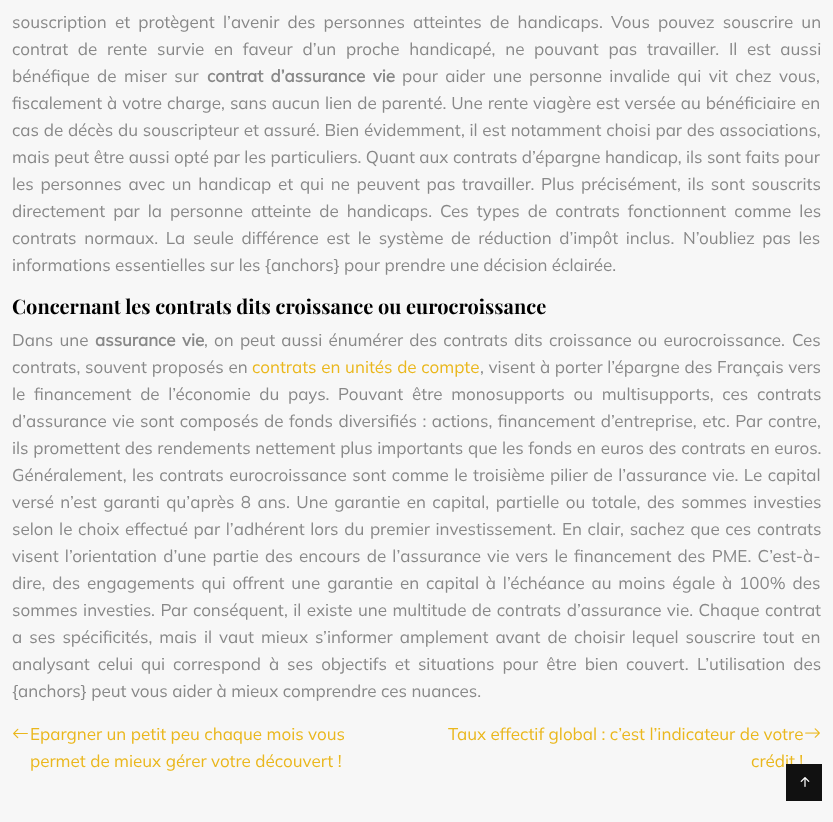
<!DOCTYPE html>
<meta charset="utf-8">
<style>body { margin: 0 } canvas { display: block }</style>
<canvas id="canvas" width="833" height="822"></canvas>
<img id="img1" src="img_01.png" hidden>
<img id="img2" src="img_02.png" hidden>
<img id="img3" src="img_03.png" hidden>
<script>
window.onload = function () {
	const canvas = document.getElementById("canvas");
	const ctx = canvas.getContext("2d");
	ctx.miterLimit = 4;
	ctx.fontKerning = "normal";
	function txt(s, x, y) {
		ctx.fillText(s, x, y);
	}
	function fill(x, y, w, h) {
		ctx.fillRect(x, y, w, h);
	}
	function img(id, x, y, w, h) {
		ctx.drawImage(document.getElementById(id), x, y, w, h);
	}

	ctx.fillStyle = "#F7F7F7";
	fill(0, 0, 833, 822);
	img("img1", 13, 728, 15, 11);
	img("img2", 805, 728, 15, 10);
	ctx.wordSpacing = "3.75px";
	ctx.font = "200 17px Mulish";
	ctx.fillStyle = "#888888";
	txt("souscription et protègent l’avenir des personnes atteintes de handicaps. Vous pouvez souscrire un", 12, 28);
	ctx.wordSpacing = "5.25px";
	txt("contrat de rente survie en faveur d’un proche handicapé, ne pouvant pas travailler. Il est aussi", 12, 55);
	ctx.wordSpacing = "3px";
	txt("bénéfique de miser sur", 12, 82);
	ctx.font = "bold 17px Mulish";
	txt("contrat d’assurance vie", 207, 82);
	ctx.font = "200 17px Mulish";
	txt("pour aider une personne invalide qui vit chez vous,", 402, 82);
	ctx.wordSpacing = "0.5px";
	txt("fiscalement à votre charge, sans aucun lien de parenté. Une rente viagère est versée au bénéficiaire en", 12, 109);
	ctx.wordSpacing = "0.3px";
	txt("cas de décès du souscripteur et assuré. Bien évidemment, il est notamment choisi par des associations,", 12, 136);
	ctx.wordSpacing = "0px";
	txt("mais peut être aussi opté par les particuliers. Quant aux contrats d’épargne handicap, ils sont faits pour", 12, 163);
	ctx.wordSpacing = "2.25px";
	txt("les personnes avec un handicap et qui ne peuvent pas travailler. Plus précisément, ils sont souscrits", 12, 190);
	ctx.wordSpacing = "3.6px";
	txt("directement par la personne atteinte de handicaps. Ces types de contrats fonctionnent comme les", 12, 217);
	ctx.wordSpacing = "3.25px";
	txt("contrats normaux. La seule différence est le système de réduction d’impôt inclus.", 12, 244);
	ctx.wordSpacing = "3px";
	txt("N’oubliez pas les", 683, 244);
	ctx.wordSpacing = "0px";
	txt("informations essentielles sur les {anchors} pour prendre une décision éclairée.", 12, 271);
	ctx.font = "bold 20px Playfair Display";
	ctx.fillStyle = "#000000";
	txt("Concernant les contrats dits croissance ou eurocroissance", 12, 314);
	ctx.wordSpacing = "1.75px";
	ctx.font = "200 17px Mulish";
	ctx.fillStyle = "#888888";
	txt("Dans une", 12, 346);
	ctx.wordSpacing = "2px";
	ctx.font = "bold 17px Mulish";
	txt("assurance vie", 95, 346);
	ctx.wordSpacing = "1.75px";
	ctx.font = "200 17px Mulish";
	txt(", on peut aussi énumérer des contrats dits croissance ou eurocroissance.", 204, 346);
	ctx.wordSpacing = "0px";
	txt("Ces", 792, 346);
	ctx.wordSpacing = "0.25px";
	txt("contrats, souvent proposés en", 12, 373);
	ctx.fillStyle = "#EAB71C";
	txt("contrats en unités de compte", 252, 373);
	ctx.fillStyle = "#888888";
	txt(", visent à porter l’épargne des Français vers", 480, 373);
	ctx.wordSpacing = "4.25px";
	txt("le financement de l’économie du pays. Pouvant être monosupports ou multisupports, ces contrats", 12, 400);
	ctx.wordSpacing = "1.1px";
	txt("d’assurance vie sont composés de fonds diversifiés : actions, financement d’entreprise, etc. Par contre,", 12, 427);
	ctx.wordSpacing = "0.25px";
	txt("ils promettent des rendements nettement plus importants que les fonds en euros des contrats en euros.", 12, 454);
	ctx.wordSpacing = "1px";
	txt("Généralement, les contrats eurocroissance sont comme le troisième pilier de l’assurance vie. Le capital", 12, 481);
	ctx.wordSpacing = "2px";
	txt("versé n’est garanti qu’après 8 ans. Une garantie en capital, partielle ou totale, des sommes investies", 12, 508);
	ctx.wordSpacing = "1.25px";
	txt("selon le choix effectué par l’adhérent lors du premier investissement. En clair, sachez que ces contrats", 12, 535);
	ctx.wordSpacing = "1.75px";
	txt("visent l’orientation d’une partie des encours de l’assurance vie vers le financement des PME. C’est-à-", 12, 562);
	ctx.wordSpacing = "2.4px";
	txt("dire, des engagements qui offrent une garantie en capital à l’échéance au moins égale à 100% des", 12, 589);
	ctx.wordSpacing = "1px";
	txt("sommes investies. Par conséquent, il existe une multitude de contrats d’assurance vie. Chaque contrat", 12, 616);
	ctx.wordSpacing = "2.6px";
	txt("a ses spécificités, mais il vaut mieux s’informer amplement avant de choisir lequel souscrire tout en", 12, 643);
	ctx.wordSpacing = "3.5px";
	txt("analysant celui qui correspond à ses objectifs et situations pour être bien couvert.", 12, 670);
	txt("L’utilisation des", 697, 670);
	ctx.wordSpacing = "0px";
	txt("{anchors} peut vous aider à mieux comprendre ces nuances.", 12, 697);
	ctx.fillStyle = "#EAB71C";
	txt("Epargner un petit peu chaque mois vous", 30, 740);
	txt("permet de mieux gérer votre découvert !", 30, 767);
	txt("Taux effectif global : c’est l’indicateur de votre", 448, 740);
	txt("crédit !", 751, 767);
	ctx.fillStyle = "#111111";
	fill(786, 764, 36, 37);
	img("img3", 800, 777, 10, 10);
};
</script>
